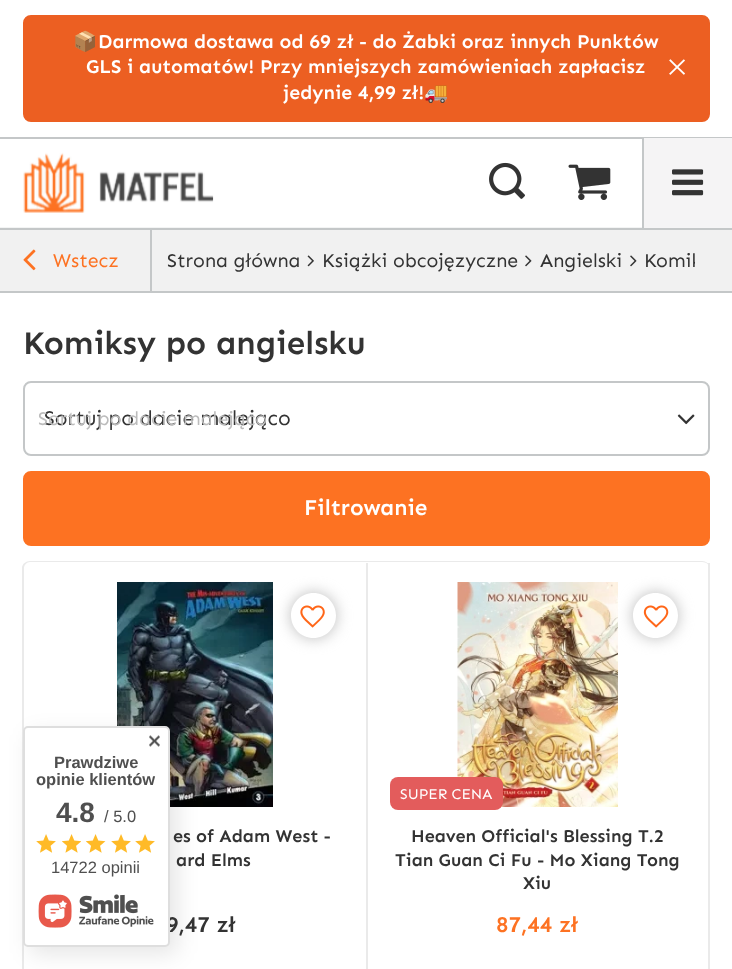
<!DOCTYPE html>
<meta charset="utf-8">
<style>body { margin: 0 } canvas { display: block }</style>
<canvas id="canvas" width="732" height="969"></canvas>
<img id="img1" src="img_01.png" hidden>
<img id="img2" src="img_02.png" hidden>
<img id="img3" src="img_03.png" hidden>
<img id="img4" src="img_04.png" hidden>
<img id="img5" src="img_05.png" hidden>
<img id="img6" src="img_06.png" hidden>
<img id="img7" src="img_07.png" hidden>
<img id="img8" src="img_08.png" hidden>
<img id="img9" src="img_09.png" hidden>
<img id="img10" src="img_10.png" hidden>
<img id="img11" src="img_11.png" hidden>
<img id="img12" src="img_12.png" hidden>
<img id="img13" src="img_13.png" hidden>
<img id="img14" src="img_14.png" hidden>
<img id="img15" src="img_15.png" hidden>
<img id="img16" src="img_16.png" hidden>
<img id="img17" src="img_17.png" hidden>
<img id="img18" src="img_18.png" hidden>
<script>
window.onload = function () {
	const canvas = document.getElementById("canvas");
	const ctx = canvas.getContext("2d");
	ctx.miterLimit = 4;
	ctx.fontKerning = "normal";
	function txt(s, x, y) {
		ctx.fillText(s, x, y);
	}
	function fill(x, y, w, h) {
		ctx.fillRect(x, y, w, h);
	}
	function round(x, y, w, h, r) {
		ctx.beginPath();
		ctx.roundRect(x, y, w, h, r);
		ctx.fill();
	}
	function img(id, x, y, w, h) {
		ctx.drawImage(document.getElementById(id), x, y, w, h);
	}

	ctx.fillStyle = "#FFFFFF";
	fill(0, 0, 732, 969);
	ctx.fillStyle = "#F1F1F1";
	fill(0, 230, 732, 61);
	ctx.fillStyle = "#C4C7C8";
	fill(150, 228, 2, 65);
	fill(0, 228, 732, 2);
	fill(0, 137, 732, 2);
	ctx.fillStyle = "#EC5F22";
	ctx.beginPath();
	ctx.roundRect(24, 16, 685, 105, 7);
	ctx.fill();
	ctx.strokeStyle = "#EC5F22";
	ctx.lineWidth = 2;
	ctx.stroke();
	img("img1", 669, 59, 16, 16);
	img("img2", 23, 152, 191, 61);
	img("img3", 489, 162, 36, 37);
	img("img4", 568, 164, 43, 36);
	ctx.fillStyle = "#F5F4F5";
	fill(644, 138, 88, 90);
	ctx.fillStyle = "#C4C7C8";
	fill(642, 138, 2, 90);
	img("img5", 672, 169, 32, 27);
	ctx.fillStyle = "#F3F4F4";
	fill(0, 227, 642, 1);
	img("img6", 23, 249, 13, 22);
	img("img7", 307, 255, 7, 12);
	img("img8", 525, 255, 7, 12);
	img("img8", 630, 255, 7, 12);
	ctx.fillStyle = "#C4C7C8";
	fill(0, 291, 732, 2);
	ctx.beginPath();
	ctx.roundRect(24, 382, 685, 73, 7);
	ctx.strokeStyle = "#C4C7C8";
	ctx.stroke();
	img("img9", 677, 414, 18, 11);
	ctx.fillStyle = "#FD7222";
	ctx.beginPath();
	ctx.roundRect(24, 472, 685, 73, 7);
	ctx.fill();
	ctx.strokeStyle = "#FD7222";
	ctx.stroke();
	ctx.fillStyle = "#EAEAEA";
	ctx.beginPath();
	ctx.moveTo(30, 561);
	ctx.lineTo(702, 561);
	ctx.bezierCurveTo(706, 561, 710, 564, 710, 568);
	ctx.lineTo(710, 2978);
	ctx.bezierCurveTo(710, 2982, 706, 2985, 702, 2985);
	ctx.lineTo(30, 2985);
	ctx.bezierCurveTo(26, 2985, 22, 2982, 22, 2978);
	ctx.lineTo(22, 568);
	ctx.bezierCurveTo(22, 564, 26, 561, 30, 561);
	ctx.closePath();
	ctx.moveTo(30, 562);
	ctx.lineTo(702, 562);
	ctx.bezierCurveTo(706, 562, 710, 565, 710, 568);
	ctx.lineTo(710, 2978);
	ctx.bezierCurveTo(710, 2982, 706, 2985, 702, 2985);
	ctx.lineTo(30, 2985);
	ctx.bezierCurveTo(27, 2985, 24, 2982, 24, 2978);
	ctx.lineTo(24, 568);
	ctx.bezierCurveTo(24, 565, 27, 562, 30, 562);
	ctx.closePath();
	ctx.fill("evenodd");
	fill(366, 563, 2, 406);
	img("img10", 117, 582, 156, 225);
	ctx.save();
	ctx.beginPath();
	ctx.moveTo(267, 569);
	ctx.lineTo(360, 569);
	ctx.lineTo(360, 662);
	ctx.lineTo(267, 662);
	ctx.closePath();
	ctx.moveTo(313.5, 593);
	ctx.bezierCurveTo(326, 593, 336, 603, 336, 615.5);
	ctx.bezierCurveTo(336, 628, 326, 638, 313.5, 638);
	ctx.bezierCurveTo(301, 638, 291, 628, 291, 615.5);
	ctx.bezierCurveTo(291, 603, 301, 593, 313.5, 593);
	ctx.closePath();
	ctx.clip("evenodd");
	ctx.fillStyle = "#BABABA";
	ctx.filter = "blur(7.5px)";
	ctx.beginPath();
	ctx.roundRect(291, 593, 45, 45, 22.5);
	ctx.fill();
	ctx.filter = "none";
	ctx.restore();
	img("img11", 300, 605, 25, 23);
	fill(708, 563, 2, 406);
	img("img12", 457, 582, 161, 225);
	ctx.fillStyle = "#E35C5C";
	round(390, 777, 113, 33, 8);
	ctx.save();
	ctx.beginPath();
	ctx.moveTo(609, 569);
	ctx.lineTo(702, 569);
	ctx.lineTo(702, 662);
	ctx.lineTo(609, 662);
	ctx.closePath();
	ctx.moveTo(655.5, 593);
	ctx.bezierCurveTo(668, 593, 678, 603, 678, 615.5);
	ctx.bezierCurveTo(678, 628, 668, 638, 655.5, 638);
	ctx.bezierCurveTo(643, 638, 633, 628, 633, 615.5);
	ctx.bezierCurveTo(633, 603, 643, 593, 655.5, 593);
	ctx.closePath();
	ctx.clip("evenodd");
	ctx.fillStyle = "#BABABA";
	ctx.filter = "blur(7.5px)";
	ctx.beginPath();
	ctx.roundRect(633, 593, 45, 45, 22.5);
	ctx.fill();
	ctx.filter = "none";
	ctx.restore();
	img("img13", 643, 605, 26, 23);
	ctx.fillStyle = "rgba(0, 0, 0, 0.1)";
	ctx.filter = "blur(11px)";
	ctx.beginPath();
	ctx.roundRect(30, 734, 147, 220, 5);
	ctx.fill();
	ctx.filter = "none";
	ctx.font = "bold 19.5px Noto Color Emoji";
	ctx.fillStyle = "#FFFFFF";
	txt("📦", 73, 48);
	ctx.font = "600 19.5px Sen";
	txt("Darmowa dostawa od 69 zł - do Żabki oraz innych Punktów", 98, 48);
	txt("GLS i automatów! Przy mniejszych zamówieniach zapłacisz", 86, 73);
	txt("jedynie 4,99 zł!", 283, 99);
	ctx.font = "bold 19.5px Noto Color Emoji";
	txt("🚚", 424, 99);
	ctx.font = "19.5px Sen";
	ctx.fillStyle = "#FD7222";
	txt("Wstecz", 53, 267);
	ctx.fillStyle = "#333333";
	txt("Strona główna", 167, 267);
	txt("Książki obcojęzyczne", 322, 267);
	txt("Angielski", 540, 267);
	ctx.save();
	ctx.beginPath();
	ctx.roundRect(167, 228, 528, 65, 8);
	ctx.clip();
	txt("Komik", 644, 267);
	ctx.restore();
	ctx.font = "600 33px Sen";
	txt("Komiksy po angielsku", 23, 354);
	ctx.font = "21px Sen";
	txt("Sortuj po dacie malejąco", 44, 425);
	ctx.font = "19.5px Sen";
	ctx.fillStyle = "#BCBCBC";
	txt("Sortuj po dacie malejąco", 38, 425);
	ctx.font = "600 22.5px Sen";
	ctx.fillStyle = "#FFFFFF";
	txt("Filtrowanie", 304, 515);
	ctx.font = "600 18px Sen";
	ctx.fillStyle = "#333333";
	txt("es of Adam West -", 173, 842);
	txt("ard Elms", 176, 866);
	ctx.font = "600 22.5px Sen";
	txt("9,47 zł", 166, 932);
	ctx.font = "15px Sen";
	ctx.fillStyle = "#FFFFFF";
	txt("SUPER CENA", 400, 799);
	ctx.font = "600 18px Sen";
	ctx.fillStyle = "#333333";
	txt("Heaven Official's Blessing T.2", 411, 842);
	txt("Tian Guan Ci Fu - Mo Xiang Tong", 395, 866);
	txt("Xiu", 523, 889);
	ctx.font = "600 22.5px Sen";
	ctx.fillStyle = "#FD7222";
	txt("87,44 zł", 496, 932);
	ctx.fillStyle = "#FFFFFF";
	ctx.beginPath();
	ctx.roundRect(24, 727, 145, 219, 4);
	ctx.fill();
	ctx.strokeStyle = "#DEDEDE";
	ctx.stroke();
	img("img14", 149, 735, 11, 12);
	ctx.font = "bold 16.5px Liberation Sans";
	ctx.fillStyle = "#4F4F4F";
	txt("Prawdziwe", 54, 768);
	txt("opinie klientów", 36, 785);
	ctx.font = "bold 28px Liberation Sans";
	txt("4.8", 56, 822);
	ctx.font = "16.5px Liberation Sans";
	txt("/ 5.0", 104, 822);
	img("img15", 36, 834, 20, 19);
	img("img16", 62, 834, 19, 19);
	img("img17", 86, 834, 20, 19);
	img("img15", 111, 834, 20, 19);
	img("img15", 135, 834, 20, 19);
	txt("14722 opinii", 51, 873);
	img("img18", 38, 894, 116, 34);
};
</script>
